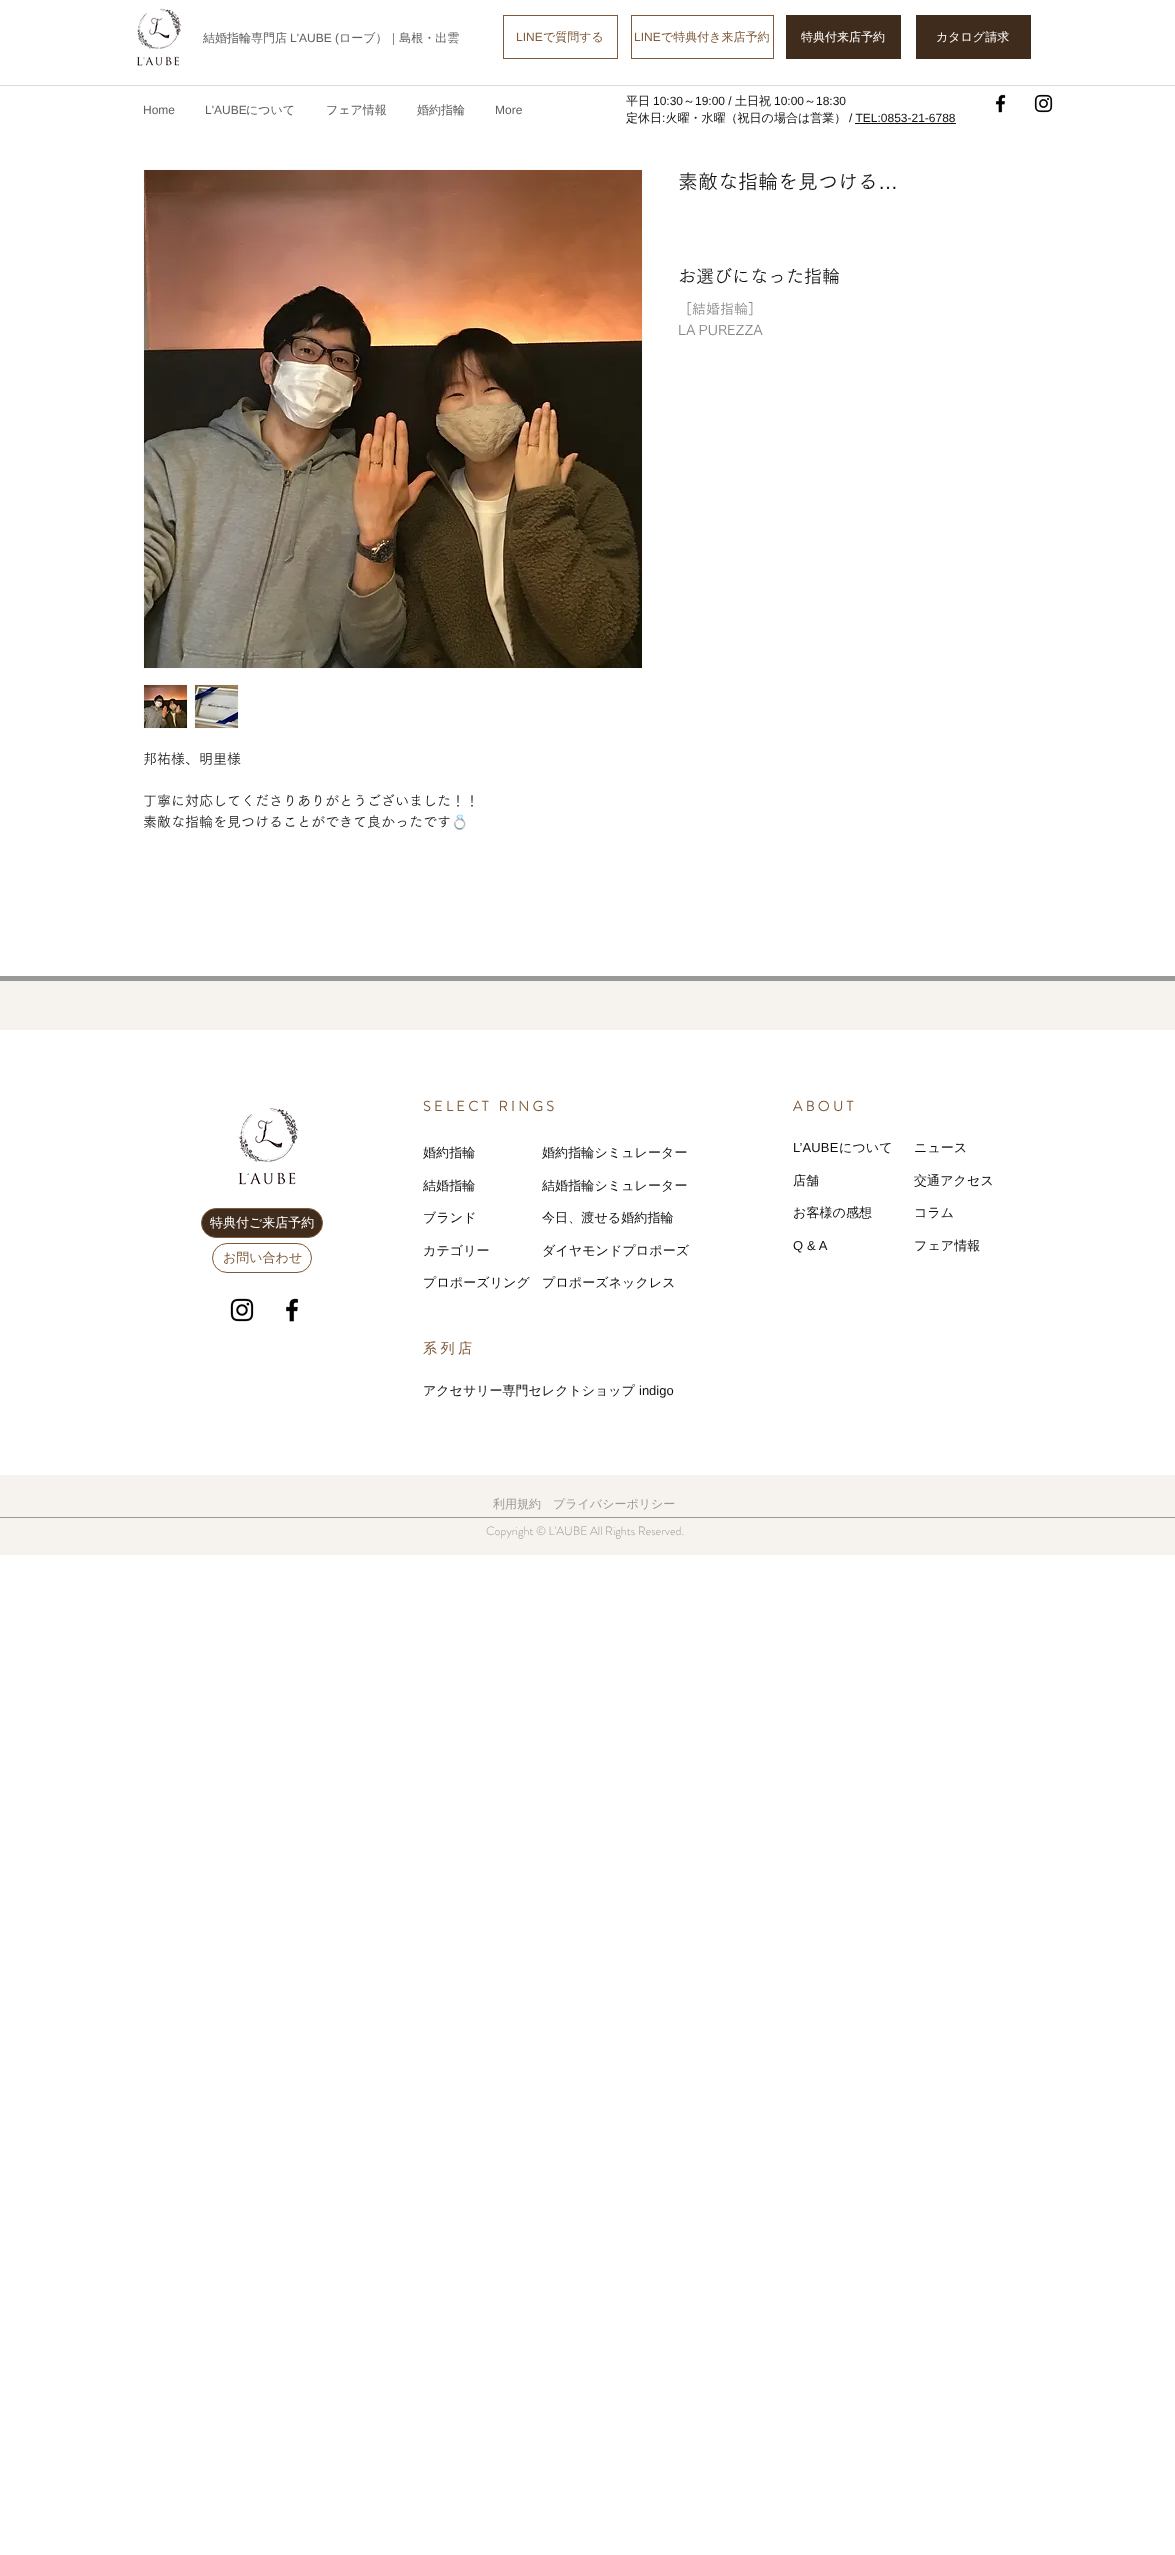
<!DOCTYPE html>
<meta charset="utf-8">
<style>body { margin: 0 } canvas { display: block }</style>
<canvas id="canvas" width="1175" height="2555"></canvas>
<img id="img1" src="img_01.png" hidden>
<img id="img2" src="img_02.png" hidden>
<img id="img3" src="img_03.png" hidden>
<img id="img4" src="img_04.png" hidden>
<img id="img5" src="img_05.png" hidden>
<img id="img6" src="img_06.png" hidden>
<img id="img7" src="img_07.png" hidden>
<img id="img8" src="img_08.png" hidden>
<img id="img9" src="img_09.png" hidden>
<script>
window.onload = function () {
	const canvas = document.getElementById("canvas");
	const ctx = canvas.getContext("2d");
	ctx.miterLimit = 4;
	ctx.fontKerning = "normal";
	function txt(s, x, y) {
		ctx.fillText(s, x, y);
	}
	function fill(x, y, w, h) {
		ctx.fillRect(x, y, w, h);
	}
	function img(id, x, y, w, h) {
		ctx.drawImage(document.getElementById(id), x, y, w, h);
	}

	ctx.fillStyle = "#FFFFFF";
	fill(0, 0, 1175, 2555);
	img("img1", 136, 8, 46, 58);
	ctx.strokeStyle = "#7F5939";
	ctx.strokeRect(503.5, 15.5, 114, 43);
	ctx.strokeRect(631.5, 15.5, 142, 43);
	ctx.fillStyle = "#402C1C";
	fill(786, 15, 115, 44);
	fill(916, 15, 115, 44);
	ctx.fillStyle = "#DBDBDB";
	fill(0, 85, 1175, 1);
	ctx.fillStyle = "#111111";
	fill(855, 123, 101, 1);
	img("img2", 995, 94, 11, 19);
	img("img3", 1034, 94, 19, 19);
	ctx.strokeStyle = "#FAFAFA";
	ctx.strokeRect(143.5, 169.5, 499, 499);
	img("img4", 144, 170, 498, 498);
	ctx.fillStyle = "#FAFAFA";
	fill(143, 684, 45, 45);
	img("img5", 144, 685, 43, 43);
	fill(194, 684, 45, 45);
	img("img6", 195, 685, 43, 43);
	ctx.fillStyle = "#F6F3EF";
	fill(0, 981, 1175, 574);
	ctx.fillStyle = "#999997";
	fill(0, 976, 1175, 5);
	ctx.fillStyle = "#FFFFFF";
	fill(0, 1030, 1175, 445);
	img("img7", 238, 1108, 60, 77);
	ctx.fillStyle = "#402C1C";
	ctx.beginPath();
	ctx.roundRect(201.5, 1208.5, 121, 29, 14.5);
	ctx.fill();
	ctx.strokeStyle = "#7F5939";
	ctx.stroke();
	ctx.beginPath();
	ctx.roundRect(212.5, 1243.5, 99, 29, 14.5);
	ctx.stroke();
	img("img8", 230, 1298, 24, 24);
	img("img9", 286, 1298, 13, 24);
	ctx.fillStyle = "#999997";
	fill(0, 1517, 1175, 1);
	ctx.font = "500 12px WenQuanYi Zen Hei";
	ctx.fillStyle = "#605E5E";
	txt("結婚指輪専門店", 203, 42);
	ctx.font = "12px Liberation Sans";
	txt("L'AUBE (", 290, 42);
	ctx.font = "500 12px WenQuanYi Zen Hei";
	txt("ローブ）｜島根・出雲", 339, 42);
	ctx.font = "12px Liberation Sans";
	ctx.fillStyle = "#7F5939";
	txt("LINE", 516, 41);
	ctx.font = "500 12px WenQuanYi Zen Hei";
	txt("で質問する", 543, 41);
	ctx.font = "12px Liberation Sans";
	txt("LINE", 634, 41);
	ctx.font = "500 12px WenQuanYi Zen Hei";
	txt("で特典付き来店予約", 661, 41);
	ctx.fillStyle = "#FFFFFF";
	txt("特典付来店予約", 801, 41);
	txt("カタログ請求", 936, 41);
	ctx.font = "12px Liberation Sans";
	ctx.fillStyle = "#605E5E";
	txt("Home", 143, 114);
	txt("L'AUBE", 205, 114);
	ctx.font = "500 12px WenQuanYi Zen Hei";
	txt("について", 246, 114);
	txt("フェア情報", 326, 114);
	txt("婚約指輪", 417, 114);
	ctx.font = "12px Liberation Sans";
	txt("More", 495, 114);
	ctx.font = "500 12px WenQuanYi Zen Hei";
	ctx.fillStyle = "#111111";
	txt("平日", 626, 105);
	ctx.font = "12px Liberation Sans";
	txt("10:30", 653, 105);
	ctx.font = "500 12px WenQuanYi Zen Hei";
	txt("～", 683, 105);
	ctx.font = "12px Liberation Sans";
	txt("19:00 /", 695, 105);
	ctx.font = "500 12px WenQuanYi Zen Hei";
	txt("土日祝", 735, 105);
	ctx.font = "12px Liberation Sans";
	txt("10:00", 774, 105);
	ctx.font = "500 12px WenQuanYi Zen Hei";
	txt("～", 804, 105);
	ctx.font = "12px Liberation Sans";
	txt("18:30", 816, 105);
	ctx.font = "500 12px WenQuanYi Zen Hei";
	txt("定休日 火曜・水曜（祝日の場合は営業）", 626, 122);
	ctx.font = "12px Liberation Sans";
	txt("/ TEL:0853-21-6788", 849, 122);
	txt(":", 662, 122);
	ctx.font = "20px 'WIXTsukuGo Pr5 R'";
	txt("素敵な指輪を見つける", 678, 189);
	ctx.font = "20px Liberation Sans";
	txt("…", 878, 189);
	ctx.font = "18px 'WIXTsukuGo Pr5 R'";
	txt("お選びになった指輪", 678, 283);
	ctx.font = "14px 'WIXTsukuGo Pr5 R'";
	ctx.fillStyle = "#858585";
	txt("［結婚指輪］", 678, 314);
	ctx.wordSpacing = "-1px";
	txt("LA PUREZZA", 678, 335);
	ctx.wordSpacing = "0px";
	ctx.fillStyle = "#111111";
	txt("邦祐様、明里様", 143, 764);
	txt("丁寧に対応してくださりありがとうございました！！", 143, 806);
	txt("素敵な指輪を見つけることができて良かったです", 143, 827);
	ctx.font = "14px Noto Color Emoji";
	txt("💍", 451, 827);
	ctx.font = "500 13px WenQuanYi Zen Hei";
	ctx.fillStyle = "#FFFFFF";
	txt("特典付ご来店予約", 210, 1227);
	ctx.fillStyle = "#7F5939";
	txt("お問い合わせ", 223, 1262);
	ctx.letterSpacing = "3.5px";
	ctx.font = "bold 14px 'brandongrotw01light'";
	txt("SELECT RINGS", 423, 1111);
	ctx.letterSpacing = "0.1px";
	ctx.font = "500 13px WenQuanYi Zen Hei";
	ctx.fillStyle = "#111111";
	txt("婚約指輪", 423, 1157);
	txt("結婚指輪", 423, 1190);
	txt("ブランド", 423, 1222);
	txt("カテゴリー", 423, 1255);
	txt("プロポーズリング", 423, 1287);
	txt("婚約指輪シミュレーター", 542, 1157);
	txt("結婚指輪シミュレーター", 542, 1190);
	txt("今日、渡せる婚約指輪", 542, 1222);
	txt("ダイヤモンドプロポーズ", 542, 1255);
	txt("プロポーズネックレス", 542, 1287);
	ctx.letterSpacing = "3.5px";
	ctx.font = "500 14px WenQuanYi Zen Hei";
	ctx.fillStyle = "#7F5939";
	txt("系列店", 423, 1353);
	ctx.letterSpacing = "0px";
	ctx.font = "500 13px WenQuanYi Zen Hei";
	ctx.fillStyle = "#111111";
	txt("アクセサリー専門セレクトショップ", 423, 1395);
	ctx.font = "13px Liberation Sans";
	txt("indigo", 639, 1395);
	ctx.letterSpacing = "3.5px";
	ctx.font = "bold 14px 'brandongrotw01light'";
	ctx.fillStyle = "#7F5939";
	txt("ABOUT", 793, 1111);
	ctx.letterSpacing = "0.1px";
	ctx.font = "13px Liberation Sans";
	ctx.fillStyle = "#111111";
	txt("L’AUBE", 793, 1152);
	ctx.font = "500 13px WenQuanYi Zen Hei";
	txt("について", 839, 1152);
	txt("店舗", 793, 1185);
	txt("お客様の感想", 793, 1217);
	ctx.font = "13px Liberation Sans";
	txt("Q & A", 793, 1250);
	ctx.font = "500 13px WenQuanYi Zen Hei";
	txt("ニュース", 914, 1152);
	txt("交通アクセス", 914, 1185);
	txt("コラム", 914, 1217);
	txt("フェア情報", 914, 1250);
	ctx.letterSpacing = "0px";
	ctx.font = "500 12px WenQuanYi Zen Hei";
	ctx.fillStyle = "#999997";
	txt("利用規約", 493, 1508);
	txt("プライバシーポリシー", 553, 1508);
	ctx.font = "300 12px 'brandongrotw01light'";
	txt("Copyright © L'AUBE All Rights Reserved.", 486, 1535);
};
</script>
